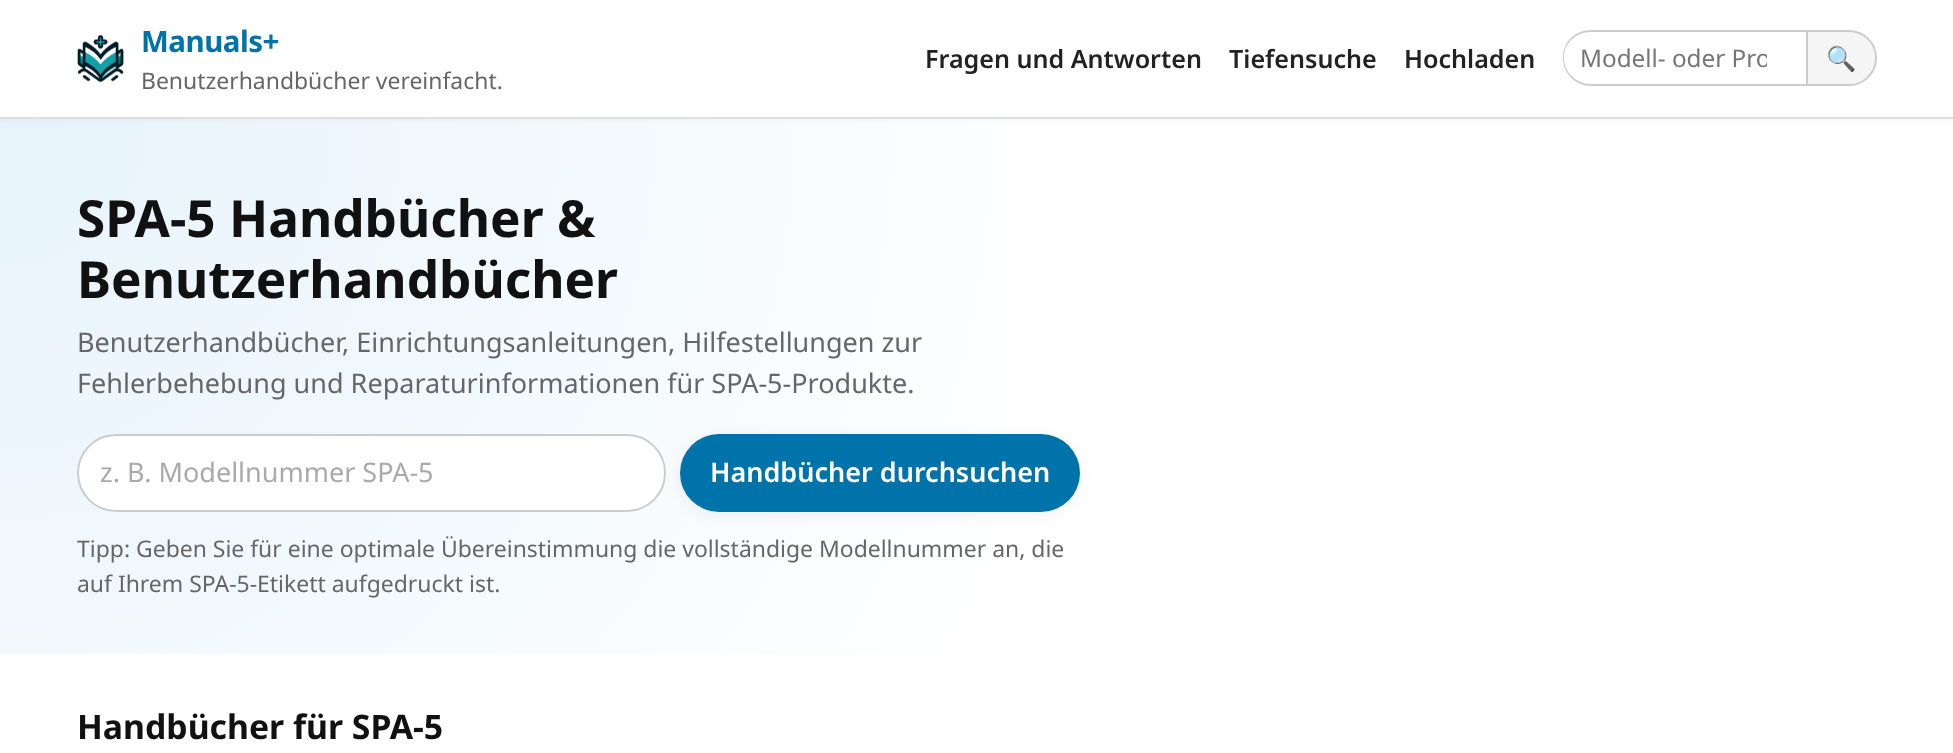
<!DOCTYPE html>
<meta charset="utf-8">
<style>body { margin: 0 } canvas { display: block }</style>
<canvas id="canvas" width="1953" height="753"></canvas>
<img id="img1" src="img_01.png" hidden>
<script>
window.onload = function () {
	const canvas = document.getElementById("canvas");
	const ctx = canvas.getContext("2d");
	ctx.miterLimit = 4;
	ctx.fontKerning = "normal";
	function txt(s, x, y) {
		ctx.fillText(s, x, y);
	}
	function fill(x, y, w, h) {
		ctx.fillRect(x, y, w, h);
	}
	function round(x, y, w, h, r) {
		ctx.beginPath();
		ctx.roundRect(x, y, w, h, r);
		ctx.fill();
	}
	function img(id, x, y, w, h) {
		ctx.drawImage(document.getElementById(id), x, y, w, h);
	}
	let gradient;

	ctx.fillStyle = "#FFFFFF";
	fill(0, 0, 1953, 753);
	gradient = ctx.createRadialGradient(0, 119, 0, 0, 119, 2025);
	gradient.addColorStop(0, "#E6F3FB");
	gradient.addColorStop(0.55, "#FFFFFF");
	ctx.fillStyle = gradient;
	fill(0, 119, 1003, 535);
	ctx.fillStyle = "rgba(0, 0, 0, 0.04)";
	ctx.filter = "blur(3px)";
	ctx.beginPath();
	ctx.rect(0, 2, 1953, 118);
	ctx.fill();
	ctx.filter = "none";
	ctx.fillStyle = "#FFFFFF";
	fill(0, 0, 1953, 117);
	ctx.fillStyle = "#E0E0E0";
	fill(0, 117, 1953, 2);
	img("img1", 77, 34, 47, 48);
	ctx.fillStyle = "#CCCCCC";
	ctx.beginPath();
	ctx.moveTo(1591, 30);
	ctx.lineTo(1806, 30);
	ctx.lineTo(1806, 86);
	ctx.lineTo(1591, 86);
	ctx.bezierCurveTo(1575, 86, 1563, 73, 1563, 58);
	ctx.bezierCurveTo(1563, 42, 1575, 30, 1591, 30);
	ctx.closePath();
	ctx.moveTo(1591, 32);
	ctx.lineTo(1806, 32);
	ctx.lineTo(1806, 84);
	ctx.lineTo(1591, 84);
	ctx.bezierCurveTo(1576, 84, 1564, 72, 1564, 58);
	ctx.bezierCurveTo(1564, 43, 1576, 32, 1591, 32);
	ctx.closePath();
	ctx.fill("evenodd");
	ctx.fillStyle = "#F5F5F5";
	ctx.beginPath();
	ctx.roundRect(1807, 31, 69, 54, [0, 27, 27, 0]);
	ctx.fill();
	ctx.strokeStyle = "#CCCCCC";
	ctx.lineWidth = 2;
	ctx.stroke();
	ctx.fillStyle = "#FFFFFF";
	ctx.beginPath();
	ctx.roundRect(78, 435, 587, 76, 38);
	ctx.fill();
	ctx.stroke();
	ctx.fillStyle = "rgba(0, 0, 0, 0.06)";
	ctx.filter = "blur(7.5px)";
	ctx.beginPath();
	ctx.roundRect(680, 437, 400, 78, 39);
	ctx.fill();
	ctx.filter = "none";
	ctx.fillStyle = "#0073AA";
	round(680, 434, 400, 78, 39);
	ctx.letterSpacing = "-0.5px";
	ctx.font = "bold 29.5px Noto Sans";
	txt("Manuals+", 141, 52);
	ctx.letterSpacing = "0px";
	ctx.font = "22.95px Noto Sans";
	ctx.fillStyle = "#666666";
	txt("Benutzerhandbücher vereinfacht.", 141, 89);
	ctx.font = "600 25.1px Noto Sans";
	ctx.fillStyle = "#222222";
	txt("Fragen und Antworten", 925, 68);
	txt("Tiefensuche", 1229, 68);
	txt("Hochladen", 1404, 68);
	ctx.save();
	ctx.beginPath();
	ctx.rect(1580, 42, 187, 33);
	ctx.clip();
	ctx.font = "24.25px Noto Sans";
	ctx.fillStyle = "#757575";
	txt("Modell- oder Pro", 1580, 67);
	ctx.restore();
	ctx.font = "24.25px Noto Color Emoji";
	ctx.fillStyle = "#000000";
	txt("🔍", 1826, 67);
	ctx.font = "bold 51.25px Noto Sans";
	ctx.fillStyle = "#111111";
	txt("SPA-5 Handbücher &", 77, 237);
	txt("Benutzerhandbücher", 77, 298);
	ctx.font = "27px Noto Sans";
	ctx.fillStyle = "#666666";
	txt("Benutzerhandbücher, Einrichtungsanleitungen, Hilfestellungen zur", 77, 352);
	txt("Fehlerbehebung und Reparaturinformationen für SPA-5-Produkte.", 77, 393);
	ctx.fillStyle = "#AAAAAA";
	txt("z. B. Modellnummer SPA-5", 100, 482);
	ctx.font = "600 27px Noto Sans";
	ctx.fillStyle = "#FFFFFF";
	txt("Handbücher durchsuchen", 710, 482);
	ctx.font = "22.95px Noto Sans";
	ctx.fillStyle = "#666666";
	txt("Tipp: Geben Sie für eine optimale Übereinstimmung die vollständige Modellnummer an, die", 77, 557);
	txt("auf Ihrem SPA-5-Etikett aufgedruckt ist.", 77, 592);
	ctx.font = "bold 33.75px Noto Sans";
	ctx.fillStyle = "#111111";
	txt("Handbücher für SPA-5", 77, 739);
};
</script>
